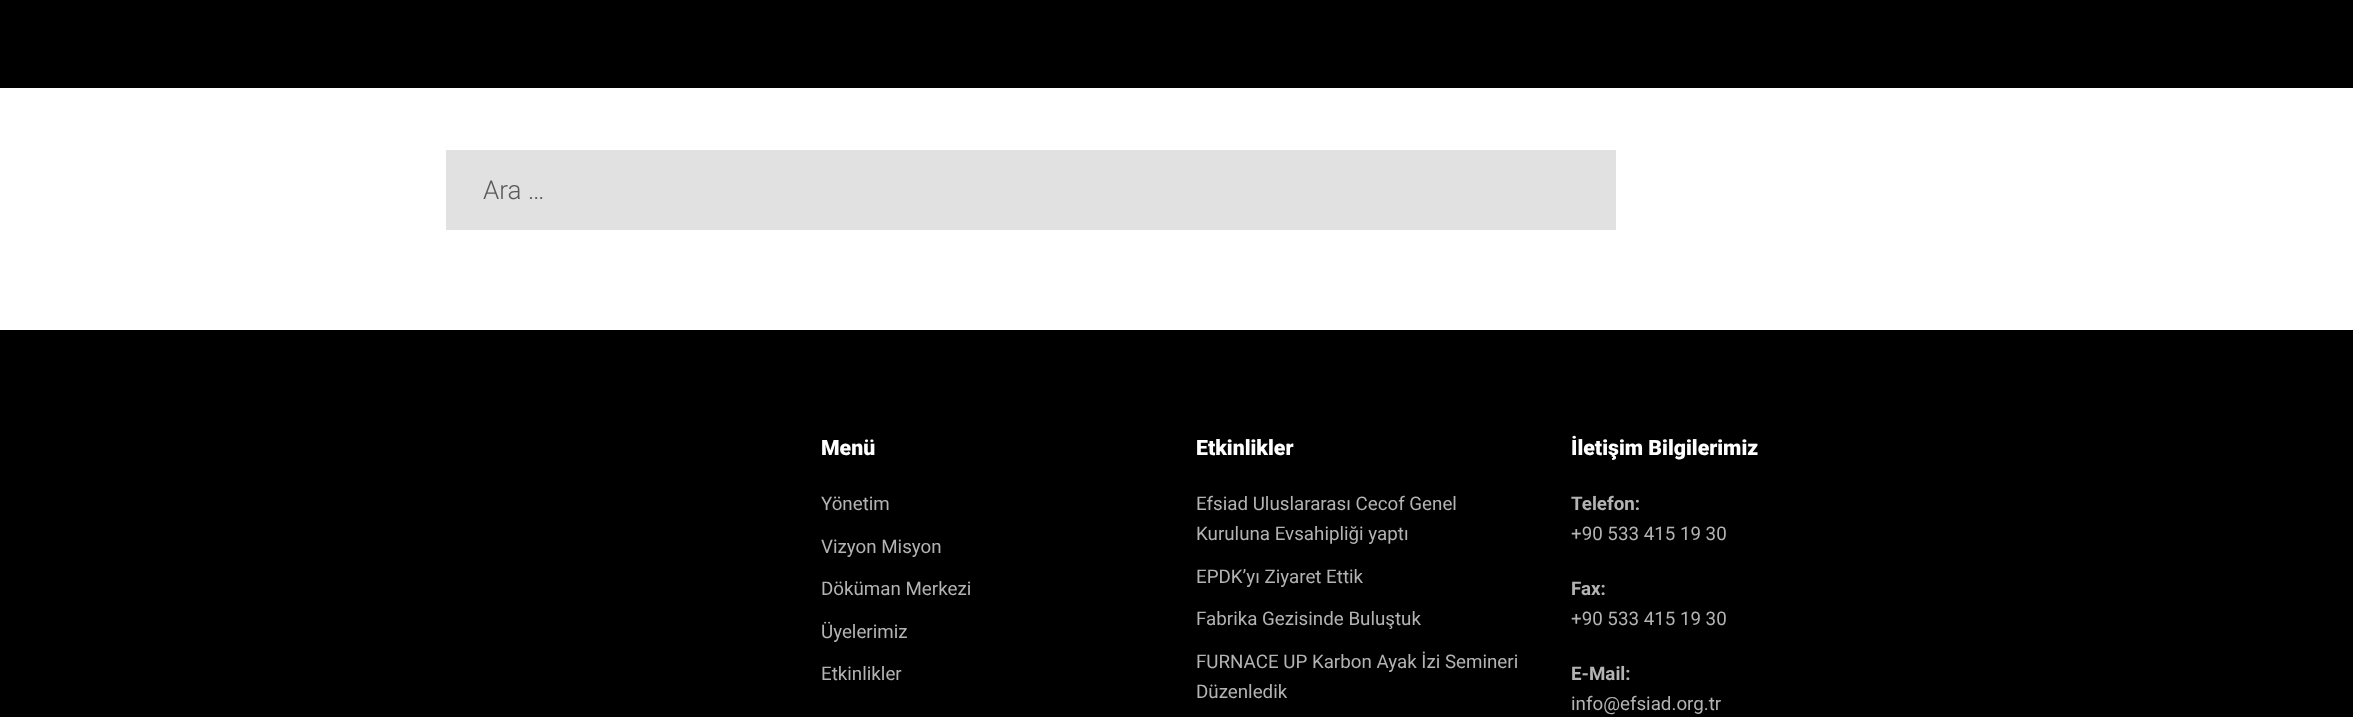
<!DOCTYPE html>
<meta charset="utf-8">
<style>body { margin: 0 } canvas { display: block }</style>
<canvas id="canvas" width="2353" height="717"></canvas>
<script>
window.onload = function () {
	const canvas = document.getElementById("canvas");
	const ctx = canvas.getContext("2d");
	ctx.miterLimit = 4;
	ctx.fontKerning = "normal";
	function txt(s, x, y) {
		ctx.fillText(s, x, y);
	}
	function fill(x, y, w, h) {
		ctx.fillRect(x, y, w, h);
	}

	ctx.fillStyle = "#FFFFFF";
	fill(0, 0, 2353, 717);
	ctx.fillStyle = "#000000";
	fill(0, 0, 2353, 88);
	ctx.fillStyle = "#E1E1E1";
	fill(446, 150, 1170, 80);
	ctx.fillStyle = "#000000";
	fill(0, 330, 2353, 387);
	ctx.font = "300 26px Roboto";
	ctx.fillStyle = "#5A5A5A";
	txt("Ara …", 483, 199);
	ctx.font = "900 21.25px Roboto";
	ctx.fillStyle = "#FFFFFF";
	txt("Menü", 821, 455);
	ctx.font = "18.75px Roboto";
	ctx.fillStyle = "#B3B3B3";
	txt("Yönetim", 821, 510);
	txt("Vizyon Misyon", 821, 553);
	txt("Döküman Merkezi", 821, 595);
	txt("Üyelerimiz", 821, 638);
	txt("Etkinlikler", 821, 680);
	ctx.font = "900 21.25px Roboto";
	ctx.fillStyle = "#FFFFFF";
	txt("Etkinlikler", 1196, 455);
	ctx.font = "18.75px Roboto";
	ctx.fillStyle = "#B3B3B3";
	txt("Efsiad Uluslararası Cecof Genel", 1196, 510);
	txt("Kuruluna Evsahipliği yaptı", 1196, 540);
	txt("EPDK’yı Ziyaret Ettik", 1196, 583);
	txt("Fabrika Gezisinde Buluştuk", 1196, 625);
	txt("FURNACE UP Karbon Ayak İzi Semineri", 1196, 668);
	txt("Düzenledik", 1196, 698);
	ctx.font = "900 21.25px Roboto";
	ctx.fillStyle = "#FFFFFF";
	txt("İletişim Bilgilerimiz", 1571, 455);
	ctx.font = "bold 18.75px Roboto";
	ctx.fillStyle = "#B3B3B3";
	txt("Telefon:", 1571, 510);
	ctx.font = "18.75px Roboto";
	txt("+90 533 415 19 30", 1571, 540);
	ctx.font = "bold 18.75px Roboto";
	txt("Fax:", 1571, 595);
	ctx.font = "18.75px Roboto";
	txt("+90 533 415 19 30", 1571, 625);
	ctx.font = "bold 18.75px Roboto";
	txt("E-Mail:", 1571, 680);
	ctx.font = "18.75px Roboto";
	txt("info@efsiad.org.tr", 1571, 710);
};
</script>
